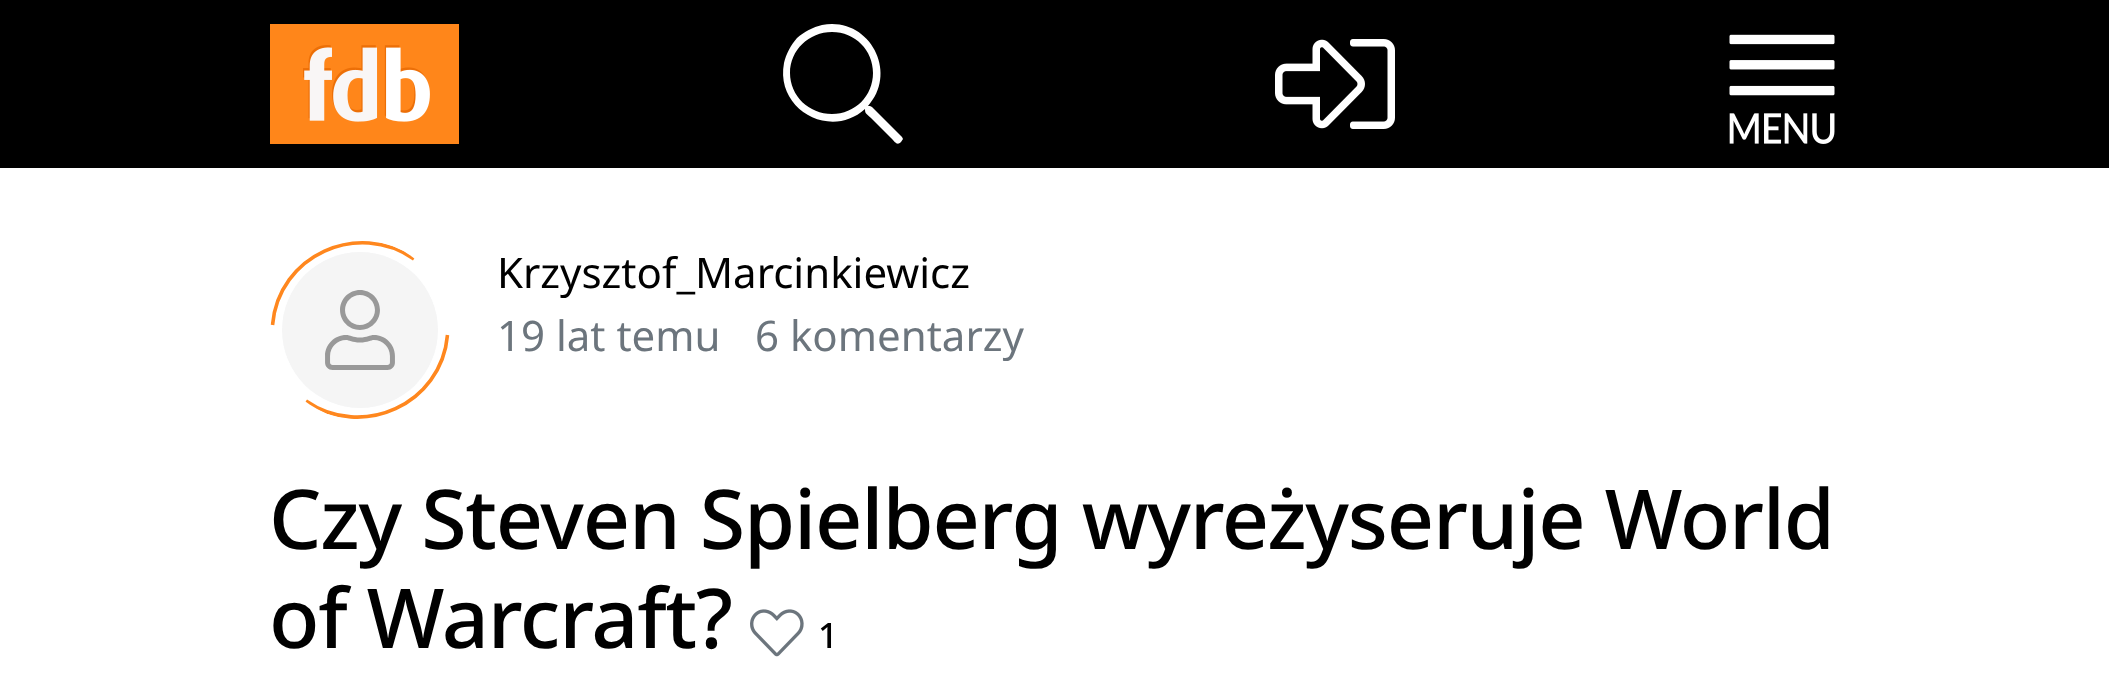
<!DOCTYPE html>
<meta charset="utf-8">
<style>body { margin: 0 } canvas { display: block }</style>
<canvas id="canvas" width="2109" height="689"></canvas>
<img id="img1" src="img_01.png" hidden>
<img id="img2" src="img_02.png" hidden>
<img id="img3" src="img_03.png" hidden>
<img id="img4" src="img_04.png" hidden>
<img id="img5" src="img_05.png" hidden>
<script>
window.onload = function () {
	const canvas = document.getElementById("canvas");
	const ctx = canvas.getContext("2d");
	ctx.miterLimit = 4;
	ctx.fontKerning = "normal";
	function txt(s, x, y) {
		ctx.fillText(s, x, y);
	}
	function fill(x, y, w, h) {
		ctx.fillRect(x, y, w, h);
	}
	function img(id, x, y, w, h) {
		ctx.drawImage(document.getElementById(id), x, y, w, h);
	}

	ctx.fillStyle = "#FFFFFF";
	fill(0, 0, 2109, 689);
	ctx.fillStyle = "#000000";
	fill(0, 0, 2109, 168);
	img("img1", 270, 24, 189, 120);
	ctx.fillStyle = "#FFFFFF";
	ctx.beginPath();
	ctx.moveTo(902, 137);
	ctx.lineTo(872, 107);
	ctx.lineTo(870, 106);
	ctx.lineTo(868, 106);
	ctx.bezierCurveTo(899, 72, 869, 16, 822, 25);
	ctx.bezierCurveTo(813, 27, 804, 32, 797, 38);
	ctx.bezierCurveTo(791, 45, 786, 54, 784, 63);
	ctx.bezierCurveTo(775, 110, 831, 140, 865, 109);
	ctx.bezierCurveTo(865, 114, 866, 113, 871, 118);
	ctx.lineTo(891, 138);
	ctx.bezierCurveTo(895, 142, 897, 146, 901, 142);
	ctx.lineTo(903, 139);
	ctx.closePath();
	ctx.moveTo(832, 114);
	ctx.bezierCurveTo(809, 114, 790, 96, 790, 73);
	ctx.bezierCurveTo(790, 50, 809, 32, 832, 32);
	ctx.bezierCurveTo(855, 32, 873, 50, 873, 73);
	ctx.bezierCurveTo(873, 96, 855, 114, 832, 114);
	ctx.closePath();
	ctx.fill();
	img("img2", 1275, 39, 120, 90);
	img("img3", 1729, 34, 106, 110);
	ctx.fillStyle = "#F8F9FA";
	ctx.beginPath();
	ctx.arc(360, 330, 78, 0, Math.PI * 2);
	ctx.fill();
	img("img4", 282, 252, 156, 156);
	ctx.save();
	ctx.beginPath();
	ctx.roundRect(270, 240, 180, 180, 90);
	ctx.clip();
	ctx.beginPath();
	ctx.moveTo(272.5, 325);
	ctx.bezierCurveTo(278.5, 255, 358, 220, 414, 259);
	ctx.strokeStyle = "#FF871E";
	ctx.lineWidth = 3.6;
	ctx.lineJoin = "round";
	ctx.stroke();
	ctx.beginPath();
	ctx.moveTo(447.5, 335);
	ctx.bezierCurveTo(441.5, 404.5, 362, 440, 306, 401);
	ctx.stroke();
	ctx.restore();
	img("img5", 750, 609, 54, 48);
	ctx.font = "42px Noto Sans";
	ctx.fillStyle = "#000000";
	txt("Krzysztof_Marcinkiewicz", 497, 288);
	ctx.fillStyle = "#6C757D";
	txt("19 lat temu", 497, 351);
	txt("6 komentarzy", 755, 351);
	ctx.letterSpacing = "-1.2px";
	ctx.font = "500 82.6px Noto Sans";
	ctx.fillStyle = "#000000";
	txt("Czy Steven Spielberg wyreżyseruje World", 269, 549);
	txt("of Warcraft?", 269, 648);
	ctx.font = "500 35px Noto Sans";
	txt("1", 818, 648);
};
</script>
